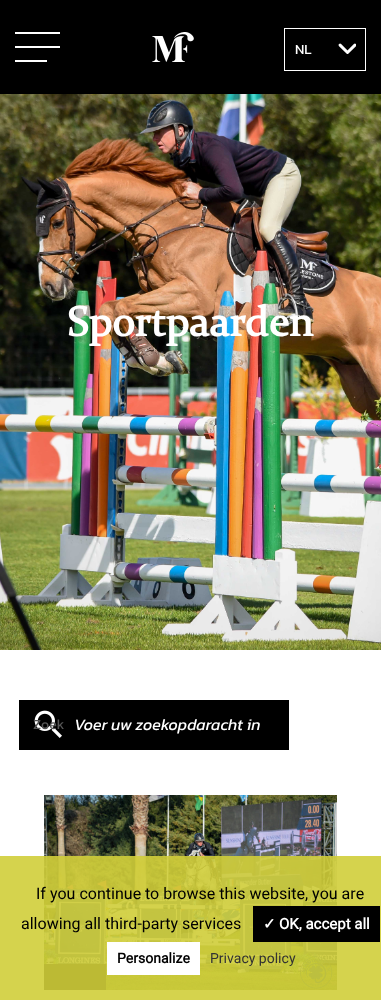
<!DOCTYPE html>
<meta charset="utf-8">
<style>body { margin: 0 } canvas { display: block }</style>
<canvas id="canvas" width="381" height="1000"></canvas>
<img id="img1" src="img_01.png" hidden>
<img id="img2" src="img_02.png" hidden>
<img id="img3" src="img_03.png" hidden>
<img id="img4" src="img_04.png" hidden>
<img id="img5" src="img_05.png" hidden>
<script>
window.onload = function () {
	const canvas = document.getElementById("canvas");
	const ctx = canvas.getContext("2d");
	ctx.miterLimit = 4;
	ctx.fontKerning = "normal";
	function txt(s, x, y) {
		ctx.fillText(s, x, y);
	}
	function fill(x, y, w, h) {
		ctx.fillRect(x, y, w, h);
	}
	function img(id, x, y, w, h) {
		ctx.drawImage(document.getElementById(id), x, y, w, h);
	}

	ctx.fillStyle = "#FFFFFF";
	fill(0, 0, 381, 1000);
	ctx.fillStyle = "#000000";
	fill(0, 0, 381, 94);
	ctx.fillStyle = "#FFFFFF";
	fill(15, 32, 45, 2);
	fill(15, 46, 45, 2);
	fill(15, 60, 32, 2);
	img("img1", 152, 32, 42, 30);
	ctx.strokeStyle = "#FFFFFF";
	ctx.strokeRect(284.5, 28.5, 81, 42);
	img("img2", 338, 43, 18, 11);
	img("img3", 0, 94, 381, 556);
	ctx.fillStyle = "#000000";
	fill(19, 700, 270, 50);
	img("img4", 34, 710, 28, 28);
	img("img5", 44, 795, 293, 195);
	fill(44, 964, 62, 26);
	ctx.fillStyle = "rgba(208, 206, 58, 0.9)";
	fill(0, 856, 381, 144);
	ctx.fillStyle = "#000000";
	fill(253, 906, 127, 36);
	ctx.fillStyle = "#FFFFFF";
	fill(107, 942, 93, 33);
	ctx.font = "14px Kanit";
	txt("NL", 295, 54);
	ctx.font = "bold 42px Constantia";
	txt("Sportpaarden", 67, 336);
	ctx.font = "14px Kanit";
	ctx.fillStyle = "#565656";
	txt("Zoek", 33, 729);
	ctx.font = "italic 16px Kanit";
	ctx.fillStyle = "#FFFFFF";
	txt("Voer uw zoekopdaracht in", 74, 730);
	ctx.font = "16px Heebo";
	ctx.fillStyle = "#000000";
	txt("If you continue to browse this website, you are", 36, 899);
	txt("allowing all third-party services", 21, 929);
	ctx.font = "bold 15px DejaVu Sans";
	ctx.fillStyle = "#FFFFFF";
	txt("✓", 263, 929);
	ctx.font = "bold 15px Heebo";
	txt("OK, accept all", 279, 929);
	ctx.font = "bold 14px Heebo";
	ctx.fillStyle = "#000000";
	txt("Personalize", 117, 963);
	ctx.font = "14px Heebo";
	ctx.fillStyle = "#333333";
	txt("Privacy policy", 210, 963);
};
</script>
